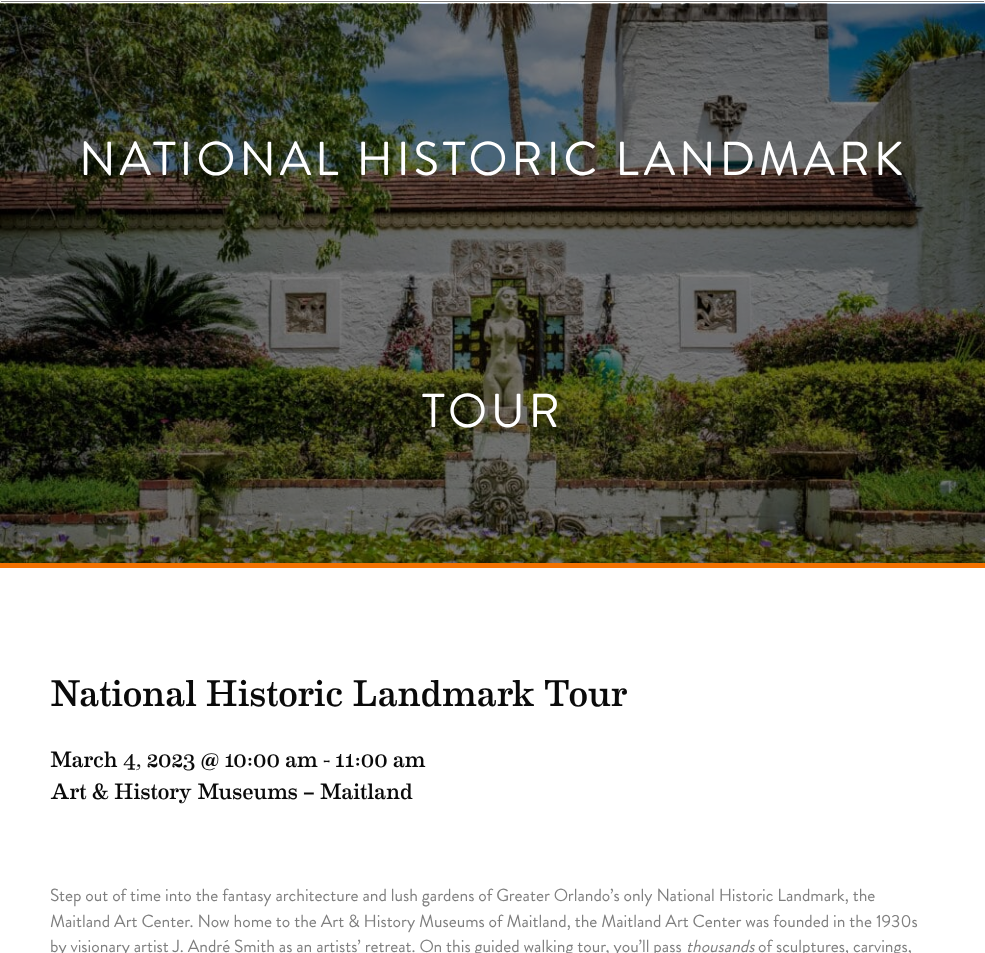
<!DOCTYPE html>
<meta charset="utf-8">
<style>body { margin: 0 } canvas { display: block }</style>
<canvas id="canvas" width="985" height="953"></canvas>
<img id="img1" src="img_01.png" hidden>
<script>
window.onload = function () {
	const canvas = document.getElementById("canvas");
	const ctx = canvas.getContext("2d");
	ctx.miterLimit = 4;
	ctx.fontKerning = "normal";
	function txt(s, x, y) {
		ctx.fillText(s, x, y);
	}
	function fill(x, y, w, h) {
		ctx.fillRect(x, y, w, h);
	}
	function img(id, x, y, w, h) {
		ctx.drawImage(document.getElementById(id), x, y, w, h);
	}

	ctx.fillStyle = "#F2F2F2";
	fill(0, 0, 985, 953);
	ctx.fillStyle = "#FFFFFF";
	fill(1, 0, 983, 3);
	ctx.fillStyle = "#7F7F7F";
	fill(1, 1, 983, 1);
	img("img1", 0, 3, 985, 560);
	ctx.fillStyle = "#F27200";
	fill(0, 563, 985, 5);
	ctx.fillStyle = "#FFFFFF";
	fill(0, 568, 985, 385);
	ctx.letterSpacing = "3.75px";
	ctx.font = "47.5px Brandon Grotesque";
	txt("NATIONAL HISTORIC LANDMARK", 79, 175);
	txt("TOUR", 422, 427);
	ctx.letterSpacing = "0px";
	ctx.font = "37.5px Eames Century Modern";
	ctx.fillStyle = "#0A0A0A";
	txt("National Historic Landmark Tour", 50, 706);
	ctx.font = "22.5px Eames Century Modern";
	txt("March 4, 2023 @ 10:00 am - 11:00 am", 50, 767);
	txt("Art & History Museums – Maitland", 50, 799);
	ctx.font = "17.5px Brandon Grotesque";
	ctx.fillStyle = "#7F7F7F";
	txt("Step out of time into the fantasy architecture and lush gardens of Greater Orlando’s only National Historic Landmark, the", 50, 901);
	txt("Maitland Art Center. Now home to the Art & History Museums of Maitland, the Maitland Art Center was founded in the 1930s", 50, 927);
	txt("by visionary artist J. André Smith as an artists’ retreat. On this guided walking tour, you’ll pass", 50, 952);
	ctx.font = "italic 17.5px Brandon Grotesque";
	txt("thousands", 686, 952);
	ctx.font = "17.5px Brandon Grotesque";
	txt("of sculptures, carvings,", 758, 952);
};
</script>
